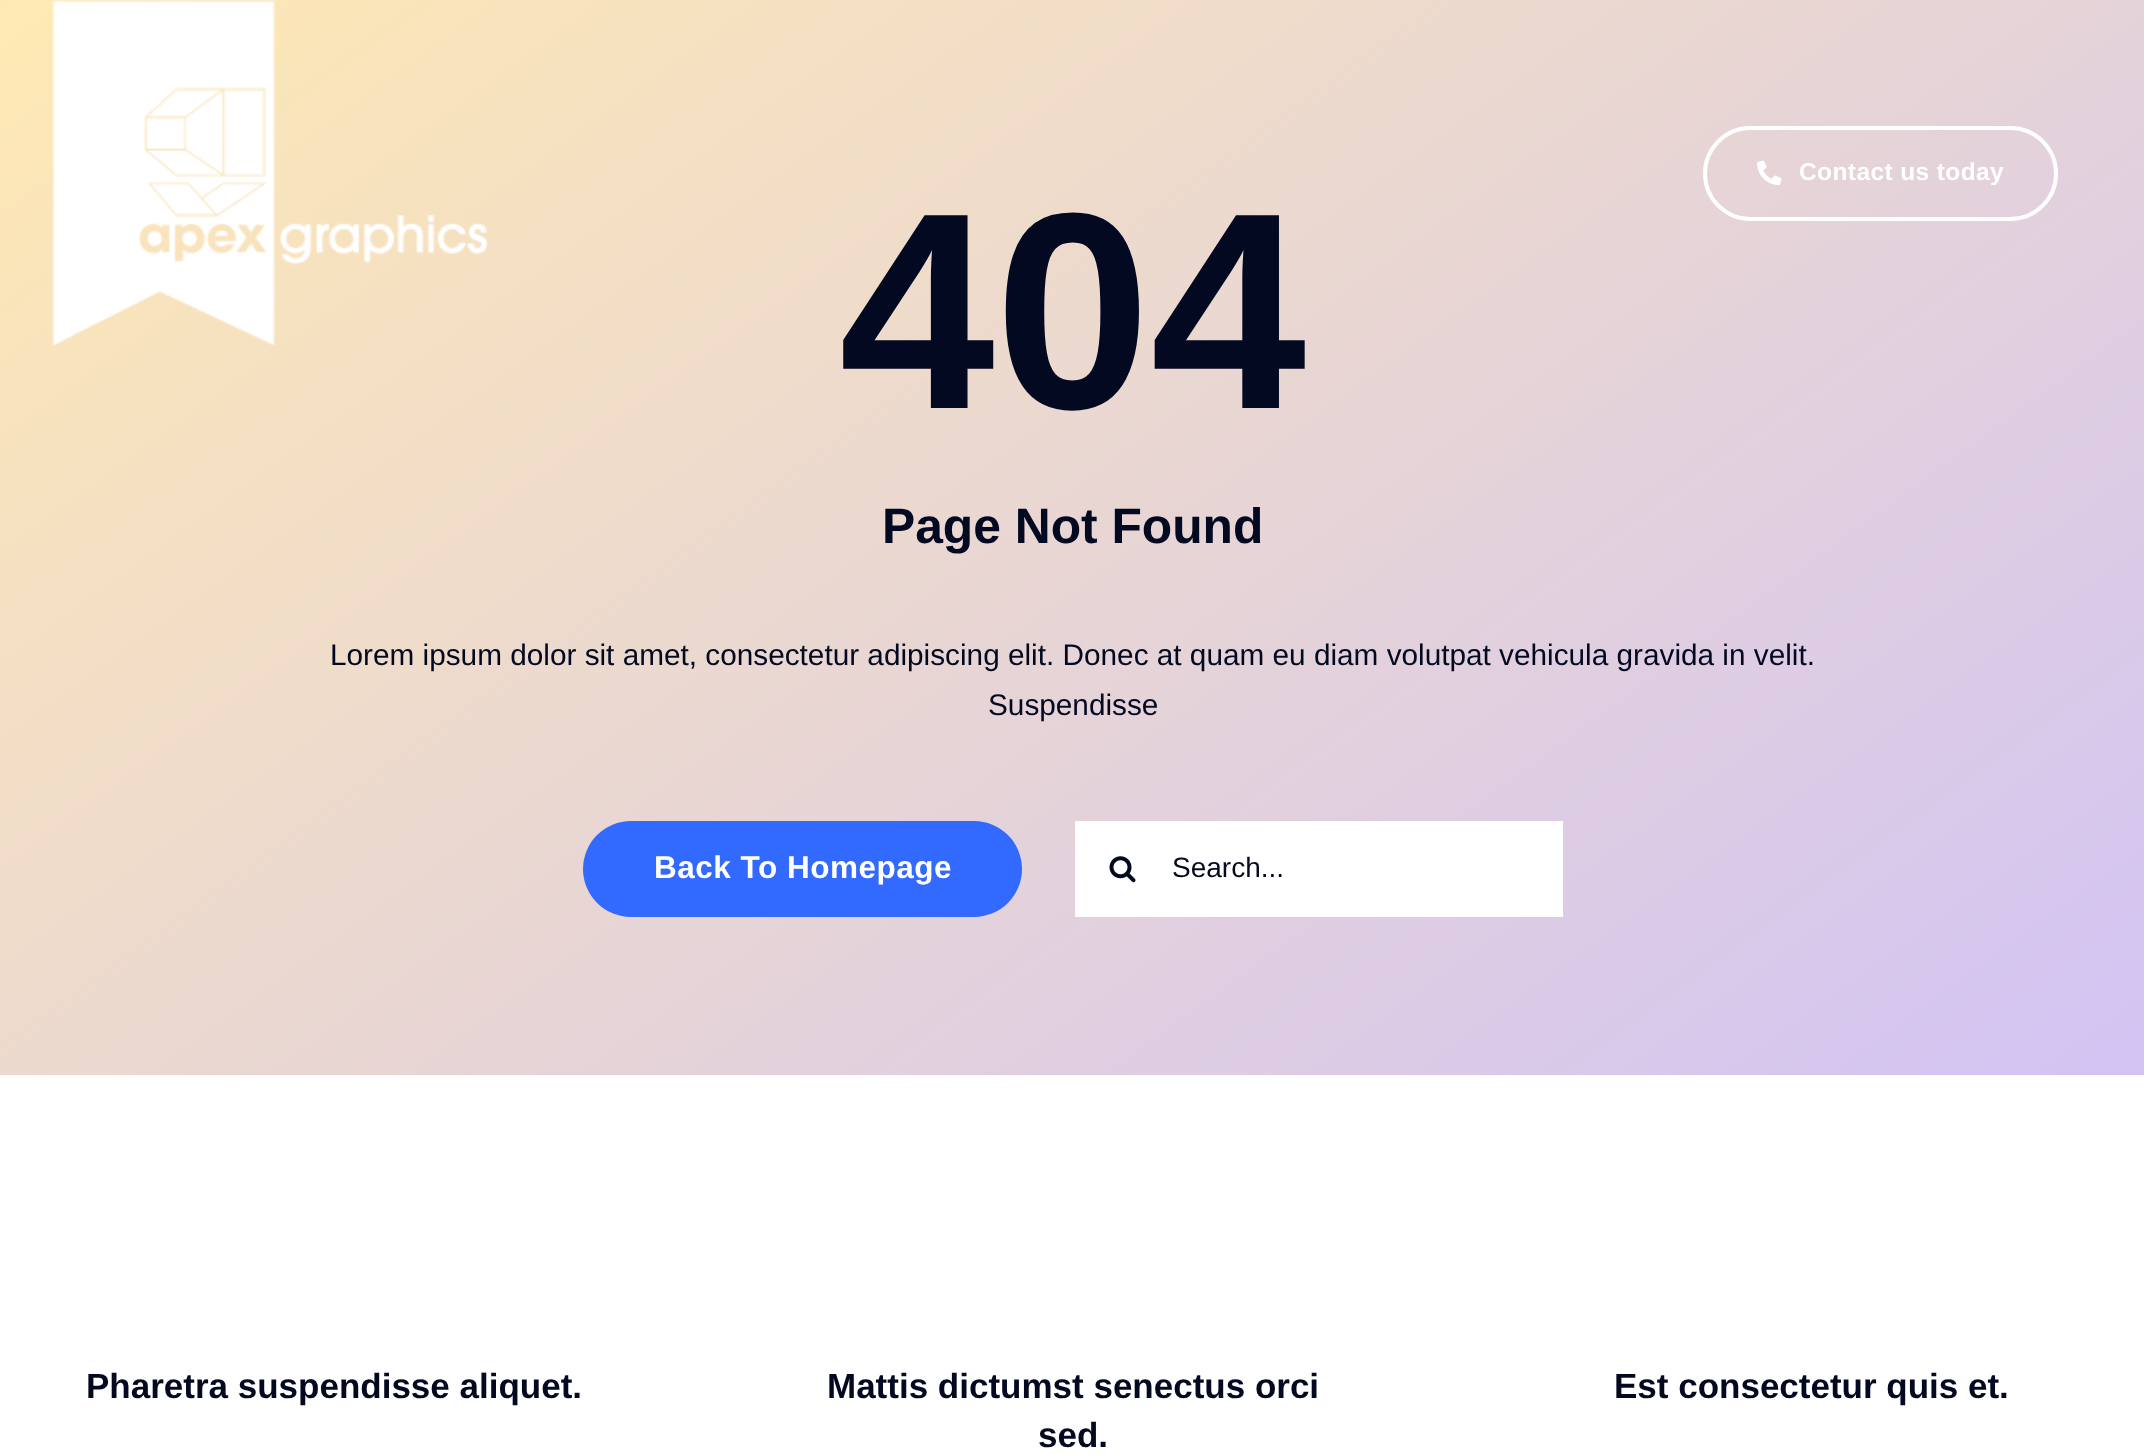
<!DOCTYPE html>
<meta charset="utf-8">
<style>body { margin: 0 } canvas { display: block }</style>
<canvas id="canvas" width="2144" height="1455"></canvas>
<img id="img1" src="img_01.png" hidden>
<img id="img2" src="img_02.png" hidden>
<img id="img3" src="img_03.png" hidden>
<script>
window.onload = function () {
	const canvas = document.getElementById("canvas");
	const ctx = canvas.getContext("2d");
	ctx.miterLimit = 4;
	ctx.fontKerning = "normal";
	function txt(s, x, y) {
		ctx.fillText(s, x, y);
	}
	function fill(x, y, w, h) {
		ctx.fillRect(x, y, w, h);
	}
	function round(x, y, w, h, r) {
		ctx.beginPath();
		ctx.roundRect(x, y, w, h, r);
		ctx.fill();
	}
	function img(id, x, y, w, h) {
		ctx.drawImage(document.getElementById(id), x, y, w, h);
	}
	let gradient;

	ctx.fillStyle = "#FFFFFF";
	fill(0, 0, 2144, 1455);
	gradient = ctx.createLinearGradient(447, -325, 1699, 1399);
	gradient.addColorStop(0, "#FFE9B3");
	gradient.addColorStop(1, "#D2C3F4");
	ctx.fillStyle = gradient;
	fill(0, 0, 2144, 1075);
	img("img1", 52, 0, 437, 346);
	ctx.beginPath();
	ctx.roundRect(1705, 128, 351, 91, 45.5);
	ctx.strokeStyle = "#FFFFFF";
	ctx.lineWidth = 4;
	ctx.stroke();
	img("img2", 1757, 160, 25, 25);
	ctx.fillStyle = "#3269FF";
	round(583, 821, 439, 96, 48);
	ctx.fillStyle = "#FFFFFF";
	fill(1075, 821, 488, 96);
	img("img3", 1109, 856, 27, 27);
	ctx.letterSpacing = "0.4px";
	ctx.font = "bold 24.5px Liberation Sans";
	txt("Contact us today", 1799, 180);
	ctx.letterSpacing = "0px";
	ctx.font = "bold 280px Liberation Sans";
	ctx.fillStyle = "#040922";
	txt("404", 839, 408);
	ctx.font = "bold 49.75px Liberation Sans";
	txt("Page Not Found", 882, 543);
	ctx.font = "29.75px Liberation Sans";
	txt("Lorem ipsum dolor sit amet, consectetur adipiscing elit. Donec at quam eu diam volutpat vehicula gravida in velit.", 330, 665);
	txt("Suspendisse", 988, 715);
	ctx.letterSpacing = "0.5px";
	ctx.font = "bold 31.5px Liberation Sans";
	ctx.fillStyle = "#FFFFFF";
	txt("Back To Homepage", 654, 878);
	ctx.letterSpacing = "0px";
	ctx.font = "28px Liberation Sans";
	ctx.fillStyle = "#040922";
	txt("Search...", 1172, 877);
	ctx.font = "bold 35px Liberation Sans";
	txt("Pharetra suspendisse aliquet.", 86, 1398);
	txt("Mattis dictumst senectus orci", 827, 1398);
	txt("sed.", 1038, 1447);
	txt("Est consectetur quis et.", 1614, 1398);
};
</script>
